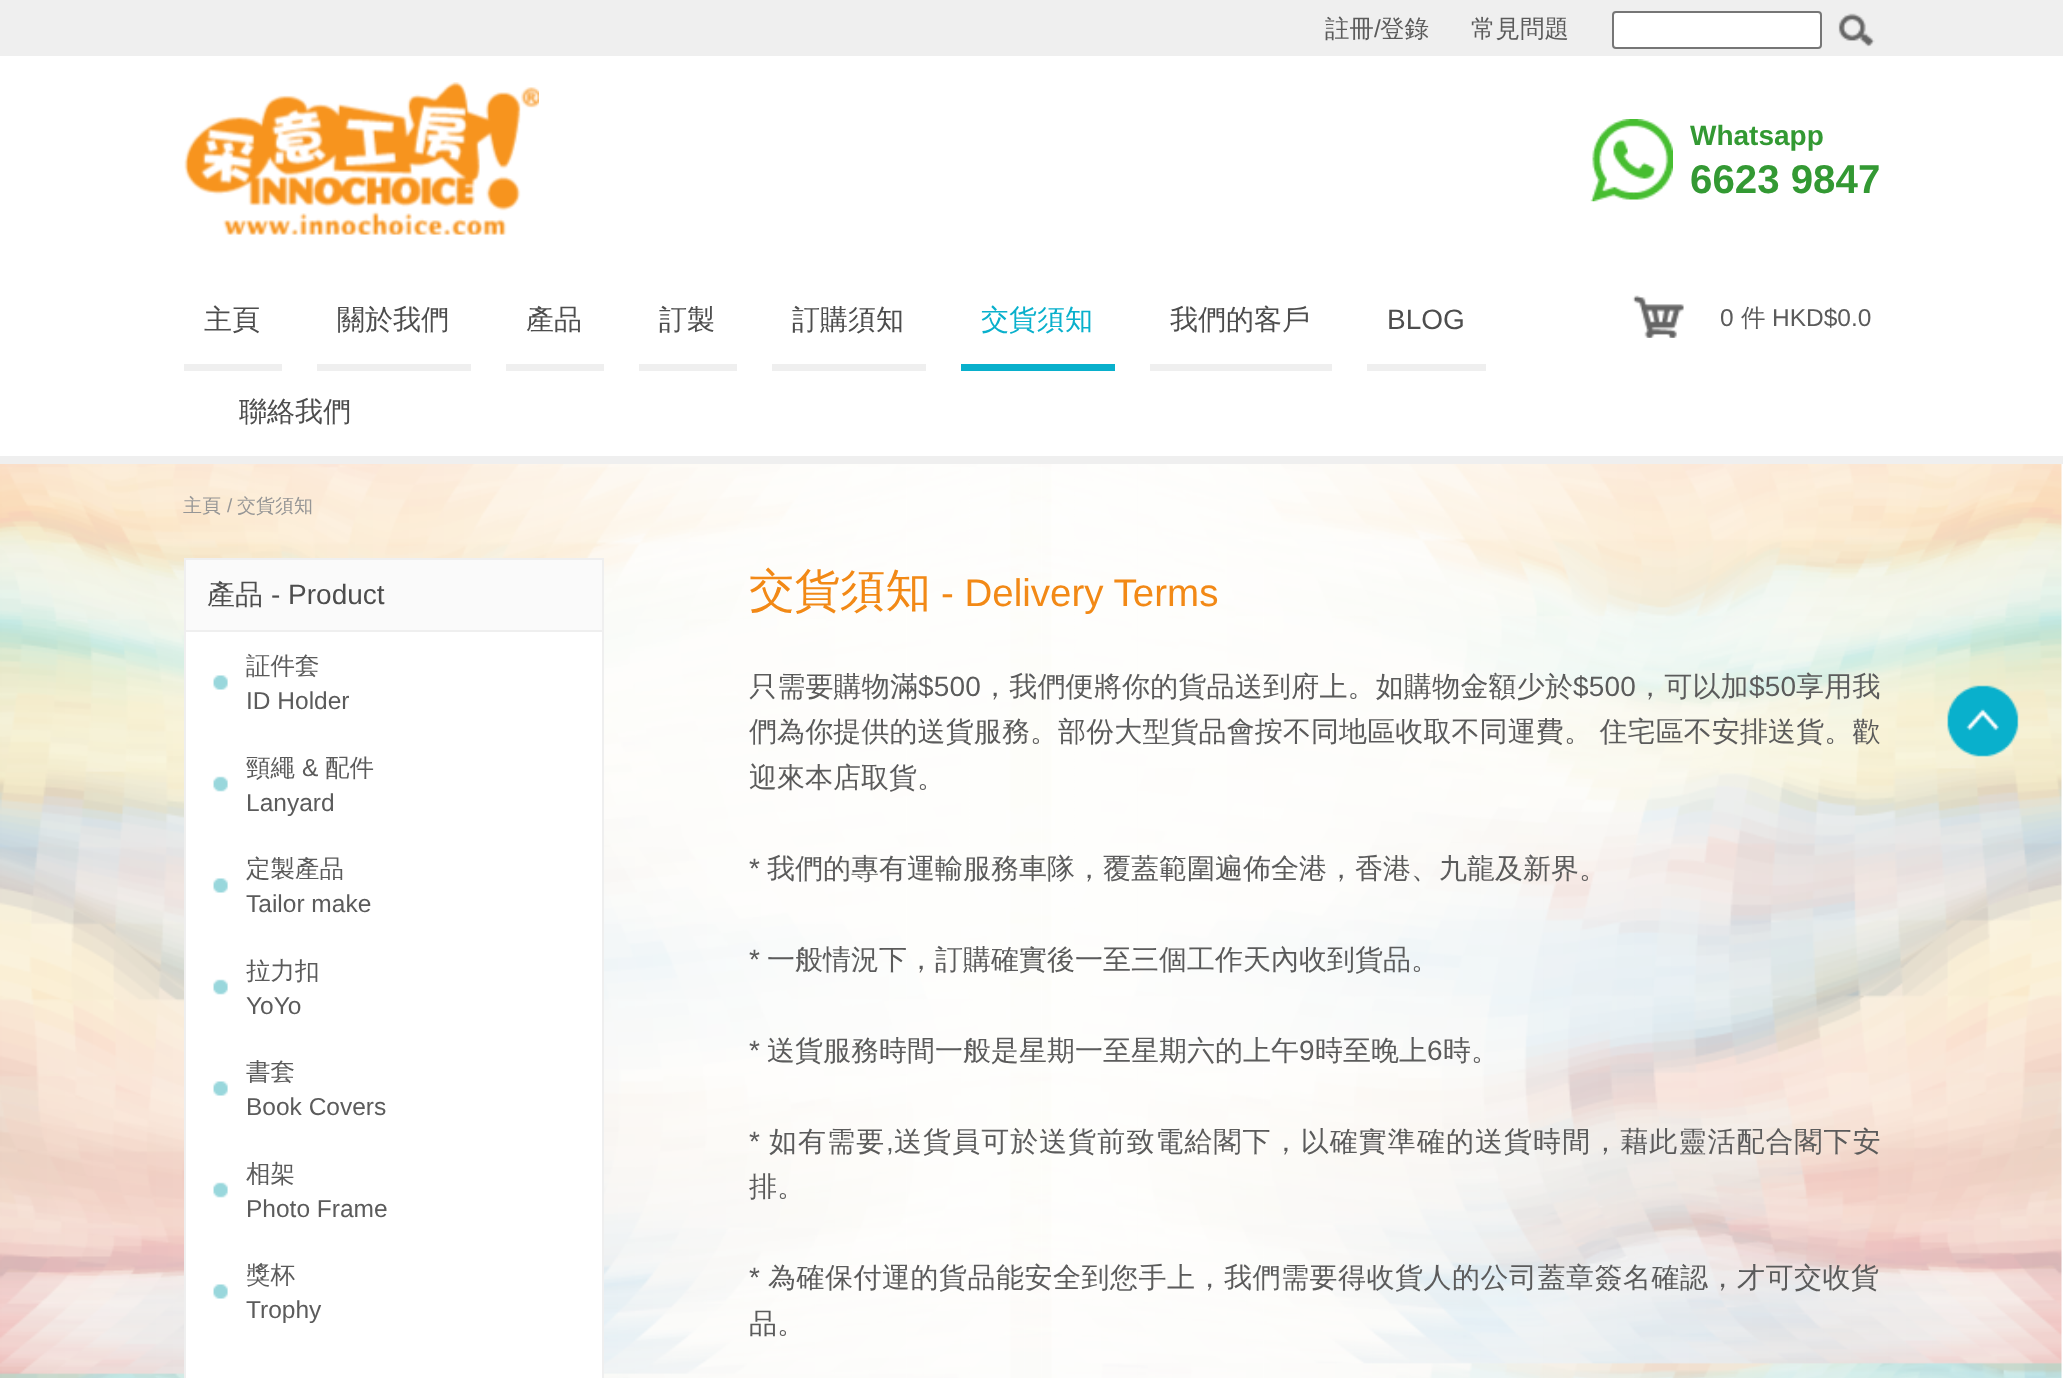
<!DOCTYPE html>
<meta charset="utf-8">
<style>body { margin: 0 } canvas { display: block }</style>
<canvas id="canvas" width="2063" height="1378"></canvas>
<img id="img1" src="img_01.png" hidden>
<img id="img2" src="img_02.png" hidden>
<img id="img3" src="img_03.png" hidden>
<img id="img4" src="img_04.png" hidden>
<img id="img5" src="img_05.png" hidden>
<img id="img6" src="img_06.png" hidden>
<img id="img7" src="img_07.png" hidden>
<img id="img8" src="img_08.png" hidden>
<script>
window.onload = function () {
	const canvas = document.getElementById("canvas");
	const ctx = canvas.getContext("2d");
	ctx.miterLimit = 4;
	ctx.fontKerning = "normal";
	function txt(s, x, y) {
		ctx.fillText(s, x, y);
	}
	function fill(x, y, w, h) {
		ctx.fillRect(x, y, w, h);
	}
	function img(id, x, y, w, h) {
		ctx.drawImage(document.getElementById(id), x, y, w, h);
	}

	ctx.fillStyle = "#FFFFFF";
	fill(0, 0, 2063, 1378);
	img("img1", 0, 464, 2062, 914);
	ctx.fillStyle = "#EFEFEF";
	fill(0, 0, 2063, 56);
	ctx.fillStyle = "#FFFFFF";
	ctx.beginPath();
	ctx.roundRect(1613, 12, 208, 36, 3);
	ctx.fill();
	ctx.strokeStyle = "#767676";
	ctx.lineWidth = 2;
	ctx.stroke();
	img("img2", 1838, 13, 37, 34);
	ctx.fillStyle = "#EFEFEF";
	fill(0, 456, 2063, 8);
	img("img3", 184, 82, 355, 153);
	img("img4", 1590, 119, 83, 83);
	fill(184, 364, 98, 7);
	fill(317, 364, 154, 7);
	fill(506, 364, 98, 7);
	fill(639, 364, 98, 7);
	fill(772, 364, 154, 7);
	ctx.fillStyle = "#09B0CC";
	fill(961, 364, 154, 7);
	ctx.fillStyle = "#EFEFEF";
	fill(1150, 364, 182, 7);
	fill(1367, 364, 119, 7);
	img("img5", 1632, 295, 52, 43);
	ctx.fillStyle = "#FFFFFF";
	fill(186, 632, 416, 746);
	ctx.strokeStyle = "#EFEFEF";
	ctx.strokeRect(185, 559, 418, 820);
	ctx.fillStyle = "#FAFAFA";
	fill(186, 560, 416, 70);
	ctx.fillStyle = "#EFEFEF";
	fill(186, 630, 416, 2);
	img("img6", 213, 675, 15, 15);
	img("img7", 213, 776, 15, 16);
	img("img6", 213, 878, 15, 15);
	img("img7", 213, 979, 15, 16);
	img("img6", 213, 1081, 15, 15);
	img("img7", 213, 1182, 15, 16);
	img("img6", 213, 1284, 15, 15);
	img("img8", 1947, 685, 72, 72);
	ctx.font = "500 24.5px WenQuanYi Zen Hei";
	ctx.fillStyle = "#5B5B5B";
	txt("註冊", 1325, 37);
	ctx.font = "24.5px Liberation Sans";
	txt("/", 1374, 37);
	ctx.font = "500 24.5px WenQuanYi Zen Hei";
	txt("登錄", 1380, 37);
	txt("常見問題", 1471, 37);
	ctx.font = "bold 28px Liberation Sans";
	ctx.fillStyle = "#339933";
	txt("Whatsapp", 1690, 145);
	ctx.font = "bold 40.25px Liberation Sans";
	txt("6623 9847", 1690, 193);
	ctx.font = "500 28px WenQuanYi Zen Hei";
	ctx.fillStyle = "#4D4D4D";
	txt("主頁", 204, 329);
	txt("關於我們", 337, 329);
	txt("產品", 526, 329);
	txt("訂製", 659, 329);
	txt("訂購須知", 792, 329);
	ctx.fillStyle = "#09B0CC";
	txt("交貨須知", 981, 329);
	ctx.fillStyle = "#4D4D4D";
	txt("我們的客戶", 1170, 329);
	ctx.font = "28px Liberation Sans";
	txt("BLOG", 1387, 329);
	ctx.font = "500 28px WenQuanYi Zen Hei";
	txt("聯絡我們", 239, 421);
	ctx.font = "24.5px Liberation Sans";
	ctx.fillStyle = "#5B5B5B";
	txt("0", 1720, 326);
	ctx.font = "500 24.5px WenQuanYi Zen Hei";
	txt("件", 1741, 326);
	ctx.font = "24.5px Liberation Sans";
	txt("HKD$0.0", 1772, 326);
	ctx.font = "500 19px WenQuanYi Zen Hei";
	ctx.fillStyle = "#969696";
	txt("主頁", 183, 512);
	ctx.font = "19px Liberation Sans";
	txt("/", 227, 512);
	ctx.font = "500 19px WenQuanYi Zen Hei";
	txt("交貨須知", 237, 512);
	ctx.font = "500 28px WenQuanYi Zen Hei";
	ctx.fillStyle = "#4D4D4D";
	txt("產品", 207, 604);
	ctx.font = "28px Liberation Sans";
	txt("- Product", 271, 604);
	ctx.font = "500 24.5px WenQuanYi Zen Hei";
	ctx.fillStyle = "#5B5B5B";
	txt("証件套", 246, 674);
	ctx.font = "24.5px Liberation Sans";
	txt("ID Holder", 246, 709);
	ctx.font = "500 24.5px WenQuanYi Zen Hei";
	txt("頸繩", 246, 776);
	ctx.font = "24.5px Liberation Sans";
	txt("&", 302, 776);
	ctx.font = "500 24.5px WenQuanYi Zen Hei";
	txt("配件", 325, 776);
	ctx.font = "24.5px Liberation Sans";
	txt("Lanyard", 246, 811);
	ctx.font = "500 24.5px WenQuanYi Zen Hei";
	txt("定製產品", 246, 877);
	ctx.font = "24.5px Liberation Sans";
	txt("Tailor make", 246, 912);
	ctx.font = "500 24.5px WenQuanYi Zen Hei";
	txt("拉力扣", 246, 979);
	ctx.font = "24.5px Liberation Sans";
	txt("YoYo", 246, 1014);
	ctx.font = "500 24.5px WenQuanYi Zen Hei";
	txt("書套", 246, 1080);
	ctx.font = "24.5px Liberation Sans";
	txt("Book Covers", 246, 1115);
	ctx.font = "500 24.5px WenQuanYi Zen Hei";
	txt("相架", 246, 1182);
	ctx.font = "24.5px Liberation Sans";
	txt("Photo Frame", 246, 1217);
	ctx.font = "500 24.5px WenQuanYi Zen Hei";
	txt("獎杯", 246, 1283);
	ctx.font = "24.5px Liberation Sans";
	txt("Trophy", 246, 1318);
	ctx.font = "500 45.5px WenQuanYi Zen Hei";
	ctx.fillStyle = "#F28916";
	txt("交貨須知", 749, 606);
	ctx.font = "38.5px Liberation Sans";
	txt("- Delivery Terms", 941, 606);
	ctx.letterSpacing = "0.2px";
	ctx.font = "500 28px WenQuanYi Zen Hei";
	ctx.fillStyle = "#5B5B5B";
	txt("只需要購物滿", 749, 696);
	ctx.font = "28px Liberation Sans";
	txt("$500", 918, 696);
	ctx.font = "500 28px WenQuanYi Zen Hei";
	txt("，我們便將你的貨品送到府上。如購物金額少於", 981, 696);
	ctx.font = "28px Liberation Sans";
	txt("$500", 1573, 696);
	ctx.font = "500 28px WenQuanYi Zen Hei";
	txt("，可以加", 1636, 696);
	ctx.font = "28px Liberation Sans";
	txt("$50", 1749, 696);
	ctx.font = "500 28px WenQuanYi Zen Hei";
	txt("享用我", 1796, 696);
	ctx.letterSpacing = "0.1px";
	ctx.wordSpacing = "-1px";
	txt("們為你提供的送貨服務。部份大型貨品會按不同地區收取不同運費。 住宅區不安排送貨。歡", 749, 741);
	ctx.letterSpacing = "0px";
	ctx.wordSpacing = "0px";
	txt("迎來本店取貨。", 749, 787);
	ctx.font = "28px Liberation Sans";
	txt("*", 749, 878);
	ctx.font = "500 28px WenQuanYi Zen Hei";
	txt("我們的專有運輸服務車隊，覆蓋範圍遍佈全港，香港、九龍及新界。", 767, 878);
	ctx.font = "28px Liberation Sans";
	txt("*", 749, 969);
	ctx.font = "500 28px WenQuanYi Zen Hei";
	txt("一般情況下，訂購確實後一至三個工作天內收到貨品。", 767, 969);
	ctx.font = "28px Liberation Sans";
	txt("*", 749, 1060);
	ctx.font = "500 28px WenQuanYi Zen Hei";
	txt("送貨服務時間一般是星期一至星期六的上午", 767, 1060);
	ctx.font = "28px Liberation Sans";
	txt("9", 1299, 1060);
	ctx.font = "500 28px WenQuanYi Zen Hei";
	txt("時至晚上", 1315, 1060);
	ctx.font = "28px Liberation Sans";
	txt("6", 1427, 1060);
	ctx.font = "500 28px WenQuanYi Zen Hei";
	txt("時。", 1443, 1060);
	ctx.letterSpacing = "1.05px";
	ctx.font = "28px Liberation Sans";
	txt("*", 749, 1151);
	ctx.font = "500 28px WenQuanYi Zen Hei";
	txt("如有需要", 769, 1151);
	txt("送貨員可於送貨前致電給閣下，以確實準確的送貨時間，藉此靈活配合閣下安", 894, 1151);
	ctx.font = "28px Liberation Sans";
	txt(",", 886, 1151);
	ctx.letterSpacing = "0px";
	ctx.font = "500 28px WenQuanYi Zen Hei";
	txt("排。", 749, 1196);
	ctx.letterSpacing = "0.5px";
	ctx.font = "28px Liberation Sans";
	txt("*", 749, 1287);
	ctx.font = "500 28px WenQuanYi Zen Hei";
	txt("為確保付運的貨品能安全到您手上，我們需要得收貨人的公司蓋章簽名確認，才可交收貨", 768, 1287);
	ctx.letterSpacing = "0px";
	txt("品。", 749, 1333);
};
</script>
